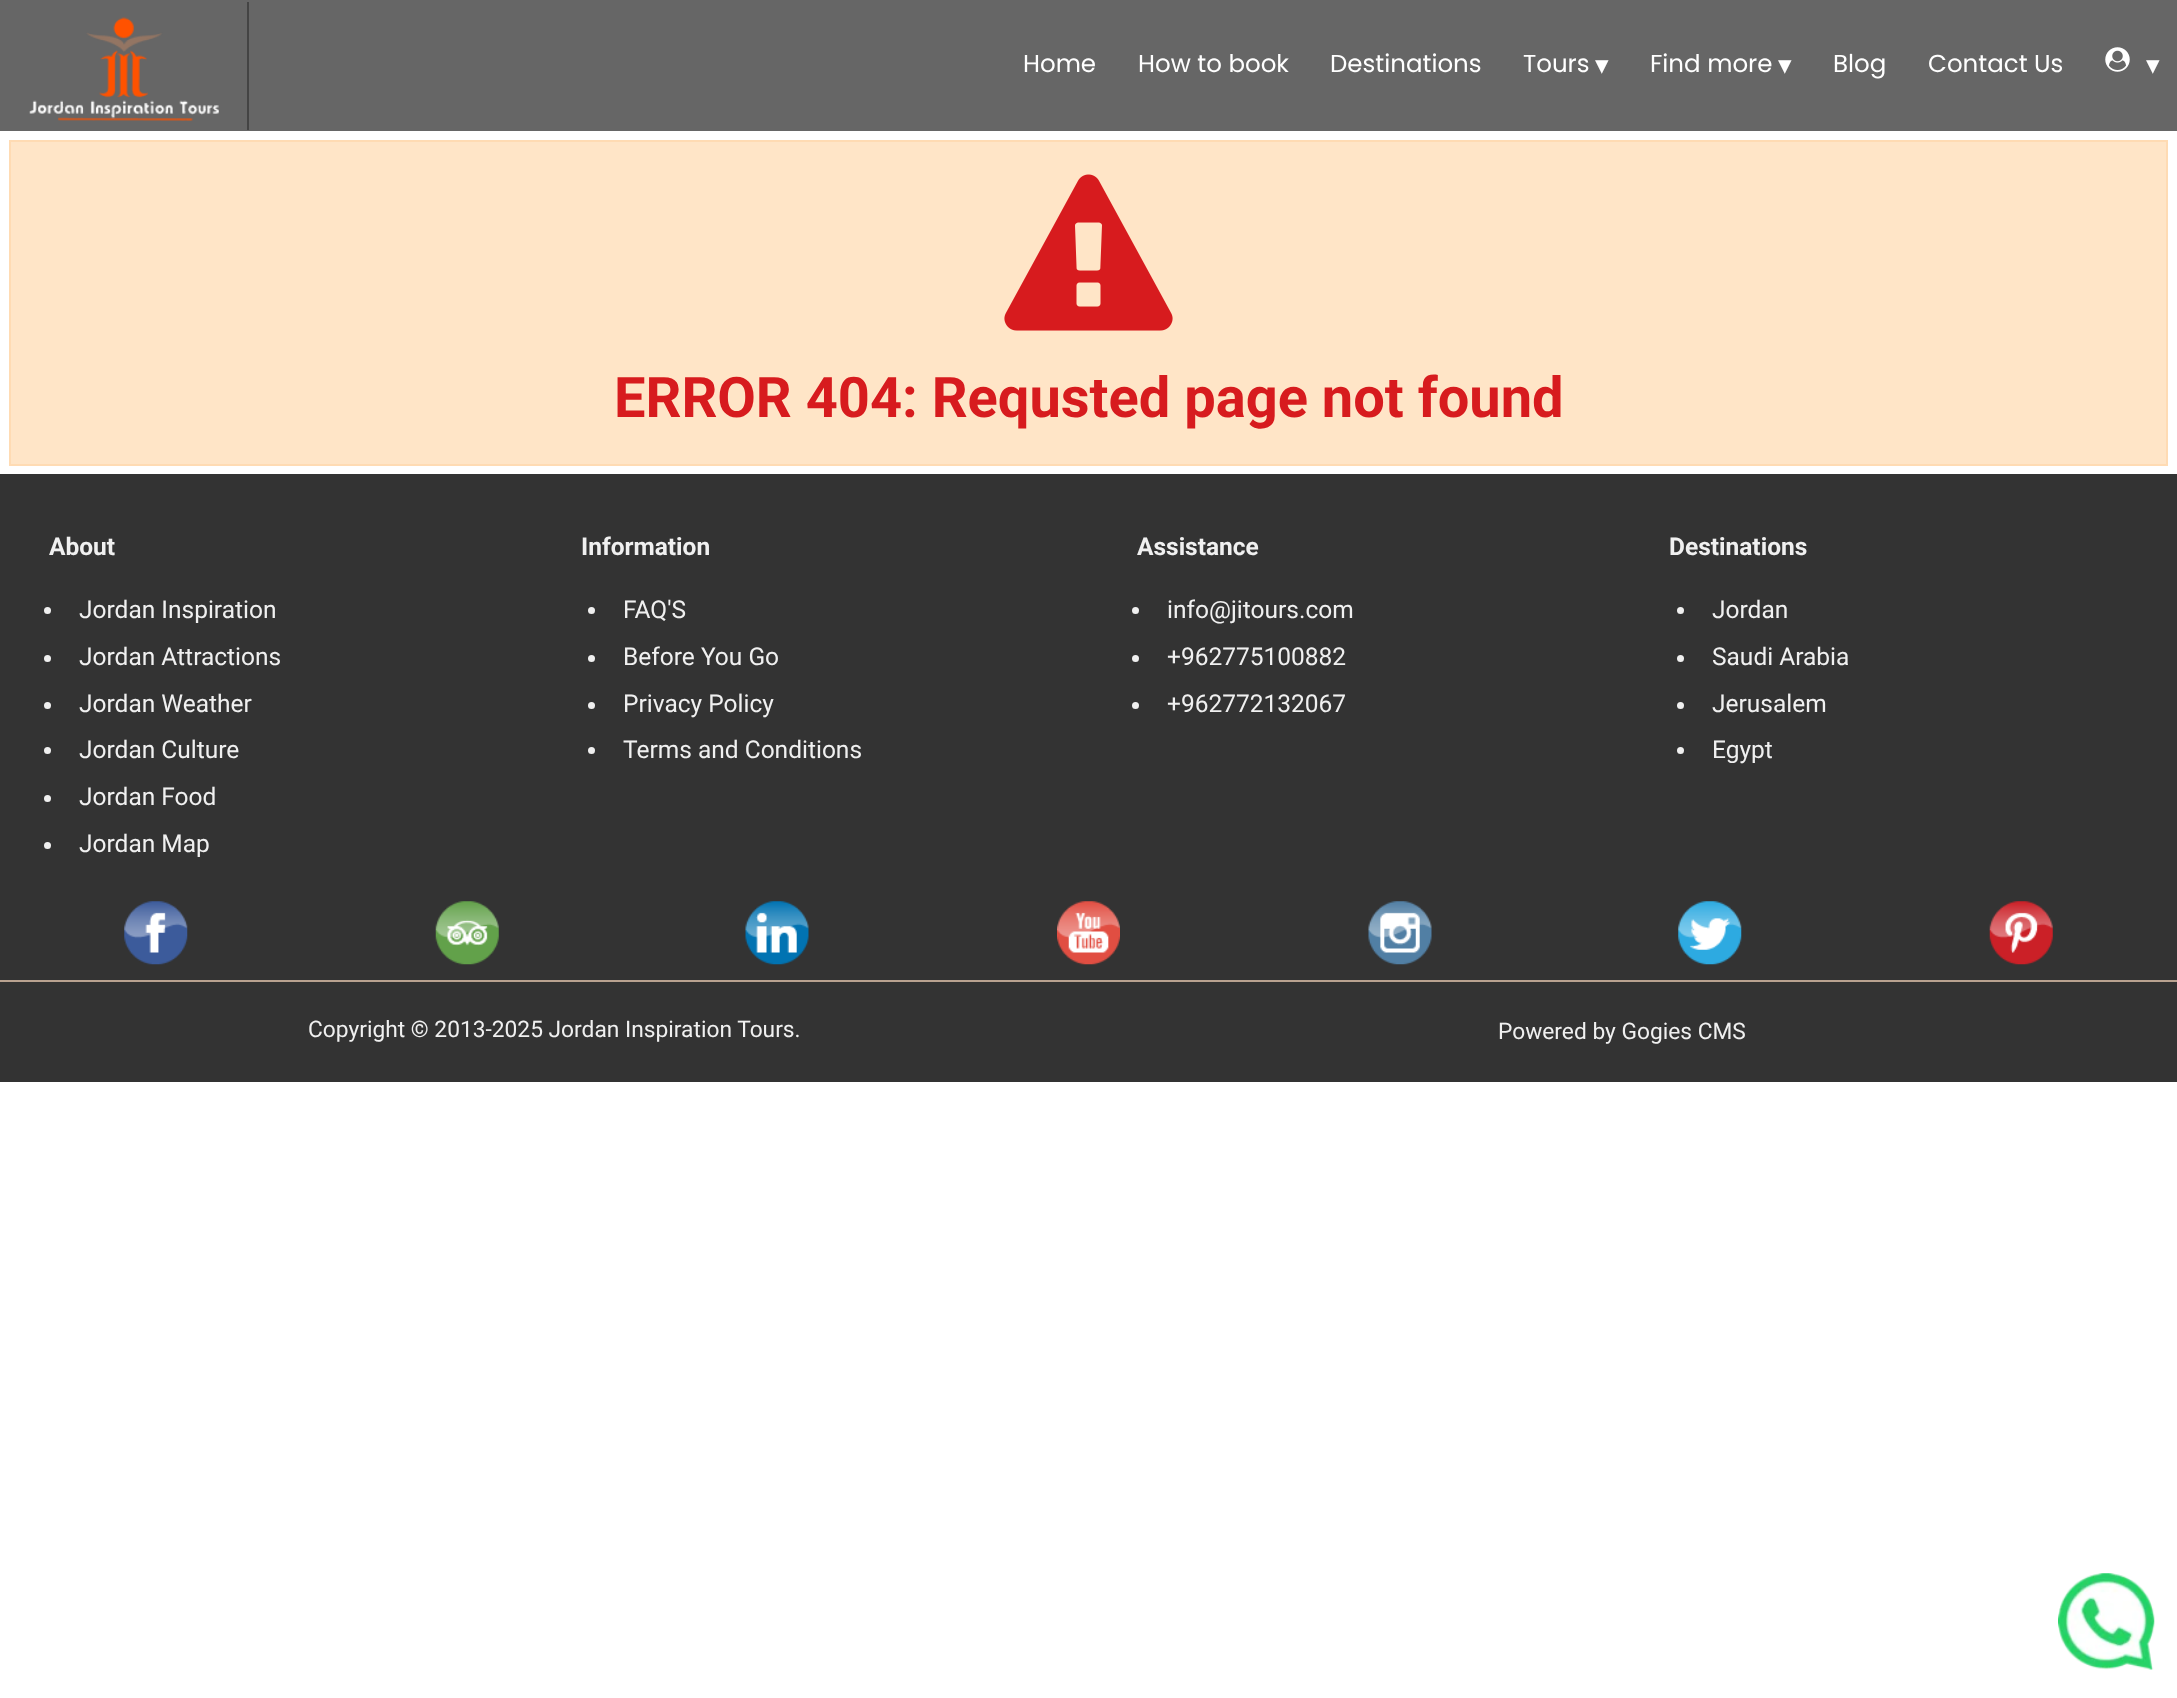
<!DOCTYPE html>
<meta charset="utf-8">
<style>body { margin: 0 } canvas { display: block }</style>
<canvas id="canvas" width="2177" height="1698"></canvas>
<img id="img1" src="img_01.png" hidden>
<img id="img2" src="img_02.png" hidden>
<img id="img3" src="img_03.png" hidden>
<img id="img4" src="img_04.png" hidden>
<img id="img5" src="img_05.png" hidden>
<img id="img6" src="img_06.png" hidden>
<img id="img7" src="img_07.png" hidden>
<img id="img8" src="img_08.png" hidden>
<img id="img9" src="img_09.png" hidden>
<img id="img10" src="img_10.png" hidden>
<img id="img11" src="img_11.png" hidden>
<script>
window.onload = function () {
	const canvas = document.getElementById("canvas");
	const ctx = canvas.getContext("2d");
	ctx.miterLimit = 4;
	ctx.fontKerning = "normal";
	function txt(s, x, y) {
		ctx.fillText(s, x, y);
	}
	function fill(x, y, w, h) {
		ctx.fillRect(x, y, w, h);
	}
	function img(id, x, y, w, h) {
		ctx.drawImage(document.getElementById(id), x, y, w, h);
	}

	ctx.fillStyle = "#FFFFFF";
	fill(0, 0, 2177, 1698);
	ctx.fillStyle = "#666666";
	fill(0, 0, 2177, 131);
	ctx.fillStyle = "#444444";
	fill(247, 2, 2, 128);
	img("img1", 29, 17, 190, 104);
	img("img2", 2105, 47, 25, 25);
	ctx.fillStyle = "#FFE5C7";
	ctx.beginPath();
	ctx.rect(10, 141, 2157, 324);
	ctx.fill();
	ctx.strokeStyle = "#FFDBB3";
	ctx.lineWidth = 2;
	ctx.stroke();
	img("img3", 1004, 174, 169, 157);
	ctx.fillStyle = "#333333";
	fill(0, 474, 2177, 608);
	ctx.fillStyle = "#F0F0F0";
	ctx.beginPath();
	ctx.arc(47.5, 610.5, 3.5, 0, Math.PI * 2);
	ctx.fill();
	ctx.beginPath();
	ctx.arc(47.5, 658.5, 3.5, 0, Math.PI * 2);
	ctx.fill();
	ctx.beginPath();
	ctx.arc(47.5, 705.5, 3.5, 0, Math.PI * 2);
	ctx.fill();
	ctx.beginPath();
	ctx.arc(47.5, 750.5, 3.5, 0, Math.PI * 2);
	ctx.fill();
	ctx.beginPath();
	ctx.arc(47.5, 798.5, 3.5, 0, Math.PI * 2);
	ctx.fill();
	ctx.beginPath();
	ctx.arc(47.5, 845.5, 3.5, 0, Math.PI * 2);
	ctx.fill();
	ctx.beginPath();
	ctx.arc(591.5, 610.5, 3.5, 0, Math.PI * 2);
	ctx.fill();
	ctx.beginPath();
	ctx.arc(591.5, 658.5, 3.5, 0, Math.PI * 2);
	ctx.fill();
	ctx.beginPath();
	ctx.arc(591.5, 705.5, 3.5, 0, Math.PI * 2);
	ctx.fill();
	ctx.beginPath();
	ctx.arc(591.5, 750.5, 3.5, 0, Math.PI * 2);
	ctx.fill();
	ctx.beginPath();
	ctx.arc(1135.5, 610.5, 3.5, 0, Math.PI * 2);
	ctx.fill();
	ctx.beginPath();
	ctx.arc(1135.5, 658.5, 3.5, 0, Math.PI * 2);
	ctx.fill();
	ctx.beginPath();
	ctx.arc(1135.5, 705.5, 3.5, 0, Math.PI * 2);
	ctx.fill();
	ctx.beginPath();
	ctx.arc(1680.5, 610.5, 3.5, 0, Math.PI * 2);
	ctx.fill();
	ctx.beginPath();
	ctx.arc(1680.5, 658.5, 3.5, 0, Math.PI * 2);
	ctx.fill();
	ctx.beginPath();
	ctx.arc(1680.5, 705.5, 3.5, 0, Math.PI * 2);
	ctx.fill();
	ctx.beginPath();
	ctx.arc(1680.5, 750.5, 3.5, 0, Math.PI * 2);
	ctx.fill();
	img("img4", 124, 901, 64, 64);
	img("img5", 435, 901, 64, 64);
	img("img6", 745, 901, 64, 64);
	img("img7", 1057, 901, 63, 64);
	img("img8", 1368, 901, 64, 64);
	img("img9", 1678, 901, 64, 64);
	img("img10", 1989, 901, 64, 64);
	ctx.fillStyle = "#B9A290";
	fill(0, 980, 2177, 2);
	img("img11", 2058, 1573, 97, 97);
	ctx.font = "24.5px Poppins";
	ctx.fillStyle = "#FFFFFF";
	txt("Home", 1023, 72);
	txt("How to book", 1138, 72);
	txt("Destinations", 1330, 72);
	txt("Tours", 1523, 72);
	ctx.font = "27px DejaVu Sans";
	txt("▾", 1595, 74);
	ctx.font = "24.5px Poppins";
	txt("Find more", 1650, 72);
	ctx.font = "27px DejaVu Sans";
	txt("▾", 1778, 74);
	ctx.font = "24.5px Poppins";
	txt("Blog", 1833, 72);
	txt("Contact Us", 1928, 72);
	ctx.font = "27px DejaVu Sans";
	txt("▾", 2146, 74);
	ctx.font = "bold 56px Roboto";
	ctx.fillStyle = "#D71B1E";
	txt("ERROR 404: Requsted page not found", 614, 417);
	ctx.font = "bold 24.5px Roboto";
	ctx.fillStyle = "#F0F0F0";
	txt("About", 49, 555);
	ctx.font = "24.5px Roboto";
	txt("Jordan Inspiration", 79, 618);
	txt("Jordan Attractions", 79, 665);
	txt("Jordan Weather", 79, 712);
	txt("Jordan Culture", 79, 758);
	txt("Jordan Food", 79, 805);
	txt("Jordan Map", 79, 852);
	ctx.font = "bold 24.5px Roboto";
	txt("Information", 581, 555);
	ctx.font = "24.5px Roboto";
	txt("FAQ'S", 623, 618);
	txt("Before You Go", 623, 665);
	txt("Privacy Policy", 623, 712);
	txt("Terms and Conditions", 623, 758);
	ctx.font = "bold 24.5px Roboto";
	txt("Assistance", 1137, 555);
	ctx.font = "24.5px Roboto";
	txt("info@jitours.com", 1167, 618);
	txt("+962775100882", 1167, 665);
	txt("+962772132067", 1167, 712);
	ctx.font = "bold 24.5px Roboto";
	txt("Destinations", 1669, 555);
	ctx.font = "24.5px Roboto";
	txt("Jordan", 1712, 618);
	txt("Saudi Arabia", 1712, 665);
	txt("Jerusalem", 1712, 712);
	txt("Egypt", 1712, 758);
	ctx.font = "22.75px Roboto";
	txt("Copyright © 2013-2025 Jordan Inspiration Tours.", 308, 1037);
	txt("Powered by Gogies CMS", 1498, 1039);
};
</script>
